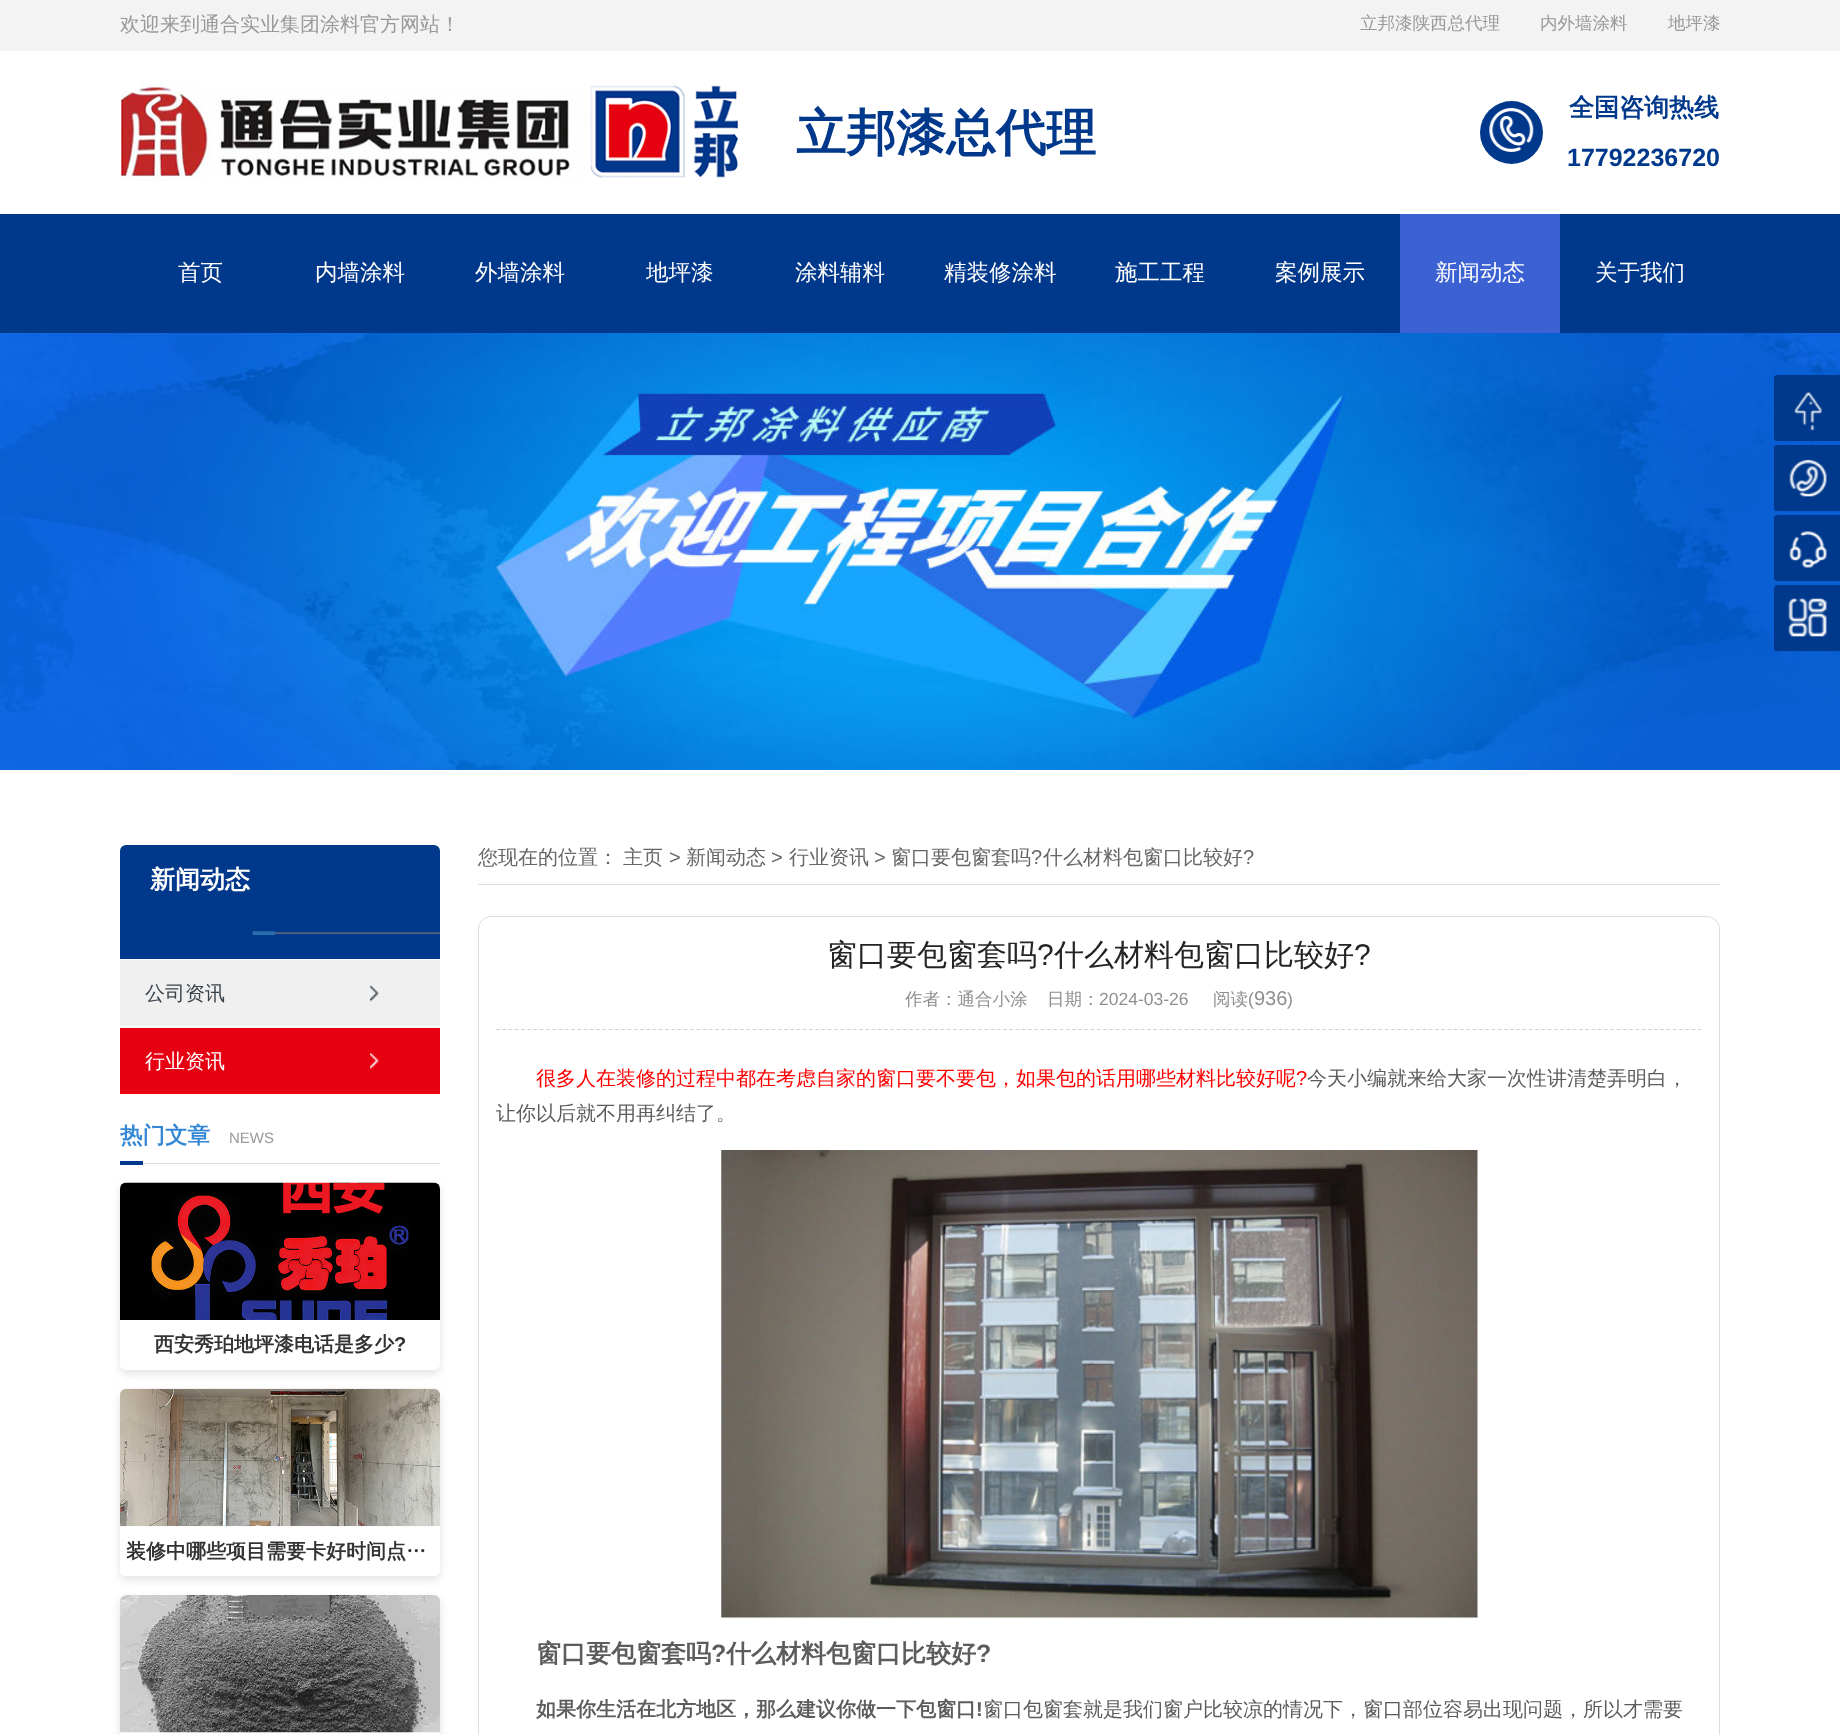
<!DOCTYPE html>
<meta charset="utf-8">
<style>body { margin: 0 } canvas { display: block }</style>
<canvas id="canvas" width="1840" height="1735"></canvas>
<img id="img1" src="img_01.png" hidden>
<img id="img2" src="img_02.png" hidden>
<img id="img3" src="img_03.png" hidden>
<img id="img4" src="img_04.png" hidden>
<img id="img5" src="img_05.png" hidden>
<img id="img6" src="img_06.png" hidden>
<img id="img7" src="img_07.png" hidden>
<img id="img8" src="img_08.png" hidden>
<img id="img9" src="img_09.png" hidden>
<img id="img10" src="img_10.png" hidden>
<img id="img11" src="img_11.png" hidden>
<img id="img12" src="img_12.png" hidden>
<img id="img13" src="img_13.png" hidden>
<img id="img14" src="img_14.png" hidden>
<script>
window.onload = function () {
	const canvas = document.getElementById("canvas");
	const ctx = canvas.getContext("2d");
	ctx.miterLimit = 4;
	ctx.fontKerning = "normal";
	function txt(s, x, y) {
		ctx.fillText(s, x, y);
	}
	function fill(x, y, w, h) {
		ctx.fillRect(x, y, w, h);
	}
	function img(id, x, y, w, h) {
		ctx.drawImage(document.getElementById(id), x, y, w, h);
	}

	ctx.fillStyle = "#FFFFFF";
	fill(0, 0, 1840, 1735);
	ctx.fillStyle = "#F3F3F3";
	fill(0, 0, 1840, 51);
	img("img1", 121, 82, 617, 99);
	ctx.fillStyle = "#00388B";
	ctx.beginPath();
	ctx.arc(1511.5, 132.5, 31.5, 0, Math.PI * 2);
	ctx.fill();
	img("img2", 1489, 108, 45, 44);
	fill(0, 214, 1840, 119);
	ctx.fillStyle = "#3C61D3";
	fill(1400, 214, 160, 119);
	img("img3", 0, 333, 1840, 437);
	img("img4", 1774, 375, 66, 67);
	img("img5", 1774, 445, 66, 67);
	img("img6", 1774, 515, 66, 67);
	img("img7", 1774, 585, 66, 67);
	ctx.fillStyle = "#00388B";
	ctx.beginPath();
	ctx.roundRect(120, 845, 320, 115, [6, 6, 0, 0]);
	ctx.fill();
	ctx.fillStyle = "#FFFFFF";
	fill(120, 959, 320, 1);
	img("img8", 252, 931, 188, 4);
	ctx.fillStyle = "#F0F0F0";
	fill(120, 960, 320, 68);
	img("img9", 370, 985, 9, 17);
	ctx.fillStyle = "#FFFFFF";
	fill(120, 1026, 320, 1);
	ctx.fillStyle = "#E60012";
	fill(120, 1028, 320, 66);
	img("img10", 370, 1052, 9, 17);
	ctx.fillStyle = "#DDDDDD";
	fill(143, 1163, 297, 1);
	ctx.fillStyle = "#00388B";
	fill(120, 1161, 23, 4);
	ctx.save();
	ctx.beginPath();
	ctx.moveTo(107, 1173);
	ctx.lineTo(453, 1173);
	ctx.lineTo(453, 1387);
	ctx.lineTo(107, 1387);
	ctx.closePath();
	ctx.moveTo(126, 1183);
	ctx.lineTo(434, 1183);
	ctx.bezierCurveTo(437.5, 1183, 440, 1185.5, 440, 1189);
	ctx.lineTo(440, 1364);
	ctx.bezierCurveTo(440, 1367.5, 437.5, 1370, 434, 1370);
	ctx.lineTo(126, 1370);
	ctx.bezierCurveTo(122.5, 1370, 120, 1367.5, 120, 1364);
	ctx.lineTo(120, 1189);
	ctx.bezierCurveTo(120, 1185.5, 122.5, 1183, 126, 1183);
	ctx.closePath();
	ctx.clip("evenodd");
	ctx.fillStyle = "#E3E3E3";
	ctx.filter = "blur(4px)";
	ctx.beginPath();
	ctx.roundRect(120, 1186, 320, 188, 6);
	ctx.fill();
	ctx.filter = "none";
	ctx.restore();
	img("img11", 120, 1182, 320, 138);
	ctx.save();
	ctx.beginPath();
	ctx.moveTo(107, 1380);
	ctx.lineTo(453, 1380);
	ctx.lineTo(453, 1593);
	ctx.lineTo(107, 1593);
	ctx.closePath();
	ctx.moveTo(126, 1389);
	ctx.lineTo(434, 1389);
	ctx.bezierCurveTo(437.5, 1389, 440, 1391.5, 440, 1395);
	ctx.lineTo(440, 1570);
	ctx.bezierCurveTo(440, 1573.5, 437.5, 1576, 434, 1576);
	ctx.lineTo(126, 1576);
	ctx.bezierCurveTo(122.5, 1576, 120, 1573.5, 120, 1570);
	ctx.lineTo(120, 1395);
	ctx.bezierCurveTo(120, 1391.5, 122.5, 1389, 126, 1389);
	ctx.closePath();
	ctx.clip("evenodd");
	ctx.fillStyle = "#E3E3E3";
	ctx.filter = "blur(4px)";
	ctx.beginPath();
	ctx.roundRect(120, 1393, 320, 187, 6);
	ctx.fill();
	ctx.filter = "none";
	ctx.restore();
	img("img12", 120, 1388, 320, 139);
	ctx.save();
	ctx.beginPath();
	ctx.moveTo(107, 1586);
	ctx.lineTo(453, 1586);
	ctx.lineTo(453, 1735);
	ctx.lineTo(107, 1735);
	ctx.closePath();
	ctx.moveTo(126, 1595);
	ctx.lineTo(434, 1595);
	ctx.bezierCurveTo(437.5, 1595, 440, 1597.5, 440, 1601);
	ctx.lineTo(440, 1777);
	ctx.bezierCurveTo(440, 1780.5, 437.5, 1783, 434, 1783);
	ctx.lineTo(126, 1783);
	ctx.bezierCurveTo(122.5, 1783, 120, 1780.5, 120, 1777);
	ctx.lineTo(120, 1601);
	ctx.bezierCurveTo(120, 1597.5, 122.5, 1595, 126, 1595);
	ctx.closePath();
	ctx.clip("evenodd");
	ctx.fillStyle = "#E3E3E3";
	ctx.filter = "blur(4px)";
	ctx.beginPath();
	ctx.roundRect(120, 1599, 320, 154, 6);
	ctx.fill();
	ctx.filter = "none";
	ctx.restore();
	img("img13", 120, 1595, 320, 138);
	ctx.fillStyle = "#DDDDDD";
	fill(478, 884, 1242, 1);
	ctx.beginPath();
	ctx.roundRect(478.5, 916.5, 1241, 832, 12.5);
	ctx.strokeStyle = "#DDDDDD";
	ctx.stroke();
	ctx.beginPath();
	ctx.moveTo(496, 1029.5);
	ctx.lineTo(1701, 1029.5);
	ctx.strokeStyle = "#D2D2D2";
	ctx.lineWidth = 1.2;
	ctx.setLineDash([3.75, 2.51]);
	ctx.stroke();
	img("img14", 721, 1150, 757, 468);
	ctx.font = "500 20px WenQuanYi Zen Hei";
	ctx.fillStyle = "#999999";
	txt("欢迎来到通合实业集团涂料官方网站！", 120, 31);
	ctx.font = "500 17.5px WenQuanYi Zen Hei";
	txt("立邦漆陕西总代理", 1360, 29);
	txt("内外墙涂料", 1540, 29);
	txt("地坪漆", 1668, 29);
	ctx.font = "bold 50px WenQuanYi Zen Hei";
	ctx.fillStyle = "#00388B";
	txt("立邦漆总代理", 796, 150);
	ctx.font = "bold 25px WenQuanYi Zen Hei";
	txt("全国咨询热线", 1569, 116);
	ctx.font = "bold 25px Liberation Sans";
	txt("17792236720", 1567, 166);
	ctx.font = "500 22.5px WenQuanYi Zen Hei";
	ctx.fillStyle = "#FFFFFF";
	txt("首页", 178, 280);
	txt("内墙涂料", 315, 280);
	txt("外墙涂料", 475, 280);
	txt("地坪漆", 646, 280);
	txt("涂料辅料", 795, 280);
	txt("精装修涂料", 944, 280);
	txt("施工工程", 1115, 280);
	txt("案例展示", 1275, 280);
	txt("新闻动态", 1435, 280);
	txt("关于我们", 1595, 280);
	ctx.font = "bold 25px WenQuanYi Zen Hei";
	txt("新闻动态", 150, 888);
	ctx.font = "500 20px WenQuanYi Zen Hei";
	ctx.fillStyle = "#3A434C";
	txt("公司资讯", 145, 1000);
	ctx.fillStyle = "#FFFFFF";
	txt("行业资讯", 145, 1068);
	ctx.font = "bold 22.5px WenQuanYi Zen Hei";
	ctx.fillStyle = "#3487D5";
	txt("热门文章", 120, 1143);
	ctx.font = "15px Liberation Sans";
	ctx.fillStyle = "#999999";
	txt("NEWS", 229, 1143);
	ctx.font = "bold 20px WenQuanYi Zen Hei";
	ctx.fillStyle = "#333333";
	txt("西安秀珀地坪漆电话是多少", 154, 1351);
	ctx.font = "bold 20px Liberation Sans";
	txt("?", 394, 1351);
	ctx.font = "bold 20px WenQuanYi Zen Hei";
	txt("装修中哪些项目需要卡好时间点…", 126, 1558);
	ctx.font = "500 20px WenQuanYi Zen Hei";
	ctx.fillStyle = "#666666";
	txt("您现在的位置：", 478, 864);
	txt("主页", 623, 864);
	ctx.font = "20px Liberation Sans";
	txt(">", 669, 864);
	ctx.font = "500 20px WenQuanYi Zen Hei";
	txt("新闻动态", 686, 864);
	ctx.font = "20px Liberation Sans";
	txt(">", 771, 864);
	ctx.font = "500 20px WenQuanYi Zen Hei";
	txt("行业资讯", 789, 864);
	ctx.font = "20px Liberation Sans";
	txt(">", 874, 864);
	ctx.font = "500 20px WenQuanYi Zen Hei";
	txt("窗口要包窗套吗", 891, 864);
	ctx.font = "20px Liberation Sans";
	txt("?", 1031, 864);
	ctx.font = "500 20px WenQuanYi Zen Hei";
	txt("什么材料包窗口比较好", 1043, 864);
	ctx.font = "20px Liberation Sans";
	txt("?", 1243, 864);
	ctx.font = "500 30px WenQuanYi Zen Hei";
	ctx.fillStyle = "#242424";
	txt("窗口要包窗套吗", 827, 965);
	ctx.font = "30px Liberation Sans";
	txt("?", 1037, 965);
	ctx.font = "500 30px WenQuanYi Zen Hei";
	txt("什么材料包窗口比较好", 1054, 965);
	ctx.font = "30px Liberation Sans";
	txt("?", 1354, 965);
	ctx.font = "500 17.5px WenQuanYi Zen Hei";
	ctx.fillStyle = "#8F8F8F";
	txt("作者：通合小涂", 905, 1005);
	txt("日期：", 1047, 1005);
	ctx.font = "17.5px Liberation Sans";
	txt("2024-03-26", 1099, 1005);
	ctx.font = "500 17.5px WenQuanYi Zen Hei";
	txt("阅读", 1213, 1005);
	ctx.font = "17.5px Liberation Sans";
	txt("(", 1248, 1005);
	ctx.font = "20px Liberation Sans";
	txt("936", 1254, 1005);
	ctx.font = "17.5px Liberation Sans";
	txt(")", 1287, 1005);
	ctx.font = "500 20px WenQuanYi Zen Hei";
	ctx.fillStyle = "#FF0000";
	txt("很多人在装修的过程中都在考虑自家的窗口要不要包，如果包的话用哪些材料比较好呢", 536, 1085);
	ctx.font = "20px Liberation Sans";
	txt("?", 1296, 1085);
	ctx.font = "500 20px WenQuanYi Zen Hei";
	ctx.fillStyle = "#5C5C5C";
	txt("今天小编就来给大家一次性讲清楚弄明白，", 1307, 1085);
	txt("让你以后就不用再纠结了。", 496, 1120);
	ctx.font = "bold 25px WenQuanYi Zen Hei";
	txt("窗口要包窗套吗", 536, 1662);
	ctx.font = "bold 25px Liberation Sans";
	txt("?", 711, 1662);
	ctx.font = "bold 25px WenQuanYi Zen Hei";
	txt("什么材料包窗口比较好", 726, 1662);
	ctx.font = "bold 25px Liberation Sans";
	txt("?", 976, 1662);
	ctx.font = "bold 20px WenQuanYi Zen Hei";
	txt("如果你生活在北方地区，那么建议你做一下包窗口", 536, 1716);
	ctx.font = "bold 20px Liberation Sans";
	txt("!", 976, 1716);
	ctx.font = "500 20px WenQuanYi Zen Hei";
	txt("窗口包窗套就是我们窗户比较凉的情况下，窗口部位容易出现问题，所以才需要", 983, 1716);
};
</script>
